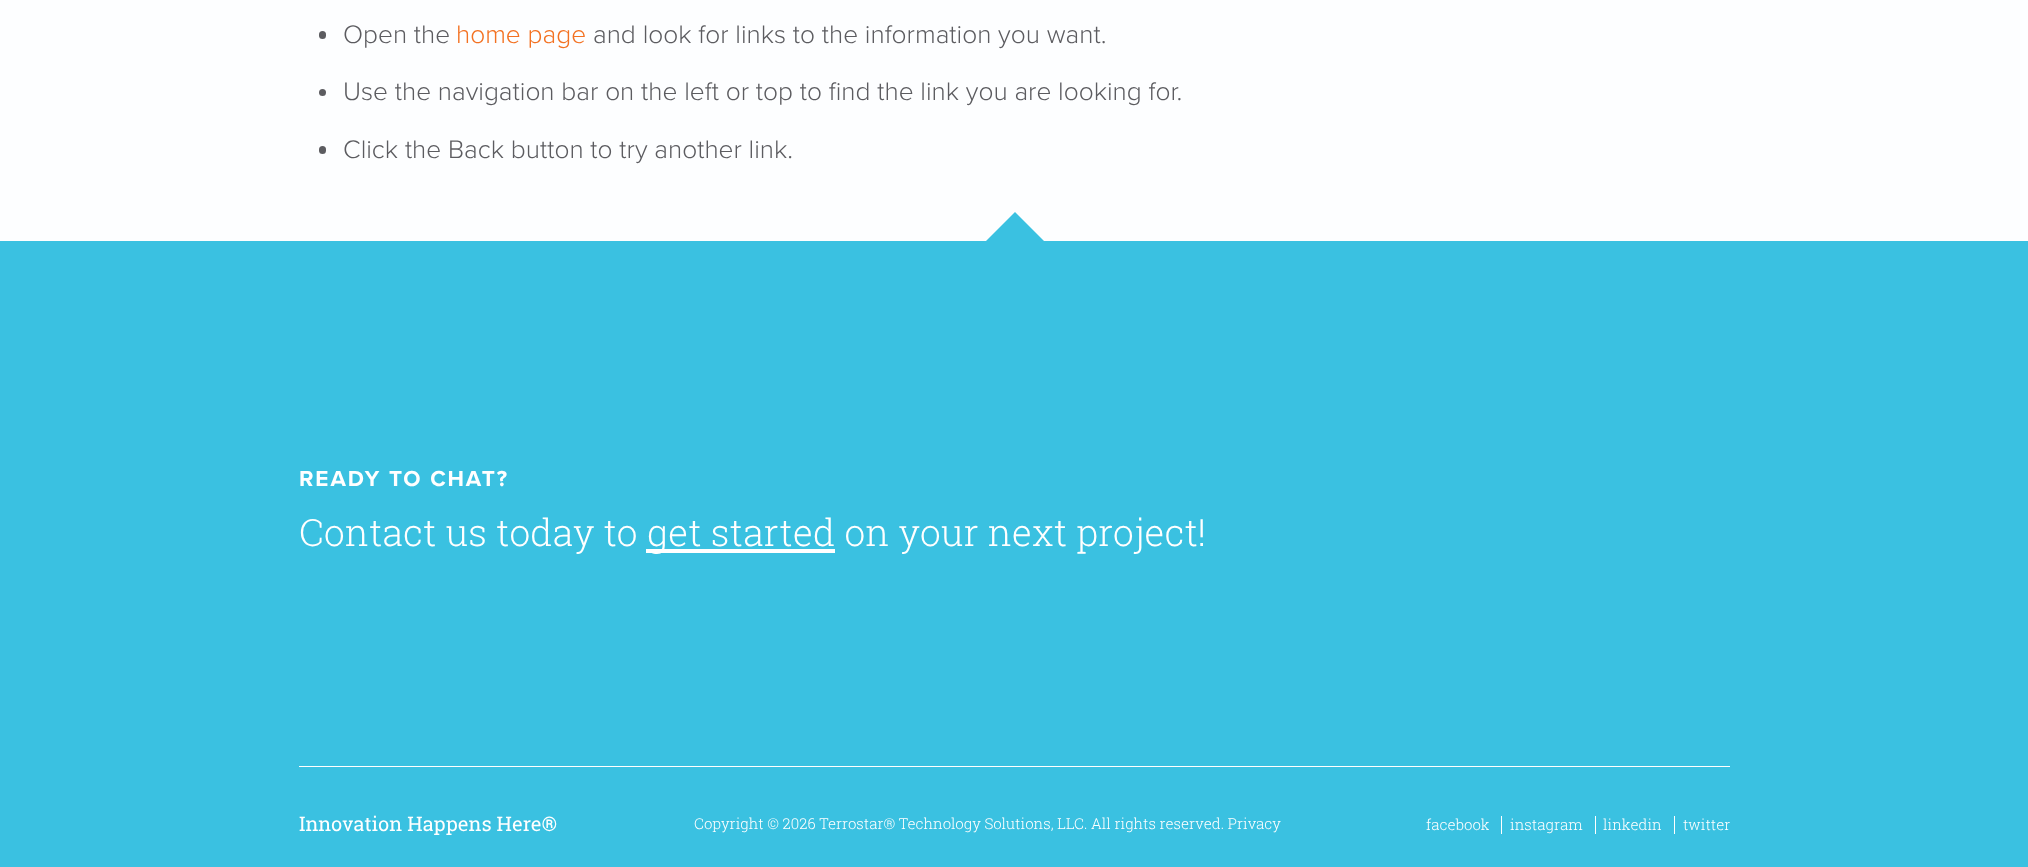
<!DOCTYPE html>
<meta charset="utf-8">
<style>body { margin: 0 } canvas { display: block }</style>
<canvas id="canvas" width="2028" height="867"></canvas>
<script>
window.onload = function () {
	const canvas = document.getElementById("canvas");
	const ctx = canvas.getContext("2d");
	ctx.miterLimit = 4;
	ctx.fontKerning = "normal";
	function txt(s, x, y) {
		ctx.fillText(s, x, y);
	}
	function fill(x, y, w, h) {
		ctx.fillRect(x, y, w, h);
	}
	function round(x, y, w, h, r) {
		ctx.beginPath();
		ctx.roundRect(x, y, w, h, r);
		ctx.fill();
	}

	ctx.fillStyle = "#FDFEFF";
	fill(0, 0, 2028, 867);
	ctx.fillStyle = "#5C5C60";
	round(319, 31, 7, 8, 3.5);
	ctx.beginPath();
	ctx.arc(322.5, 92.5, 3.5, 0, Math.PI * 2);
	ctx.fill();
	round(319, 146, 7, 8, 3.5);
	ctx.fillStyle = "#3AC1E1";
	fill(0, 241, 2028, 626);
	ctx.beginPath();
	ctx.moveTo(1044, 241);
	ctx.lineTo(986, 241);
	ctx.lineTo(1015, 212);
	ctx.closePath();
	ctx.fill();
	ctx.fillStyle = "#FFFFFF";
	fill(646, 549, 189, 4);
	fill(299, 766, 1431, 1);
	fill(1501, 816, 1, 18);
	fill(1595, 816, 1, 18);
	fill(1674, 816, 1, 18);
	ctx.font = "300 26.25px Proxima Nova";
	ctx.fillStyle = "#5C5C60";
	txt("Open the", 343, 43);
	ctx.fillStyle = "#F37121";
	txt("home page", 456, 43);
	ctx.fillStyle = "#5C5C60";
	txt("and look for links to the information you want.", 593, 43);
	txt("Use the navigation bar on the left or top to find the link you are looking for.", 343, 100);
	txt("Click the Back button to try another link.", 343, 158);
	ctx.letterSpacing = "1.9px";
	ctx.font = "bold 22.5px Proxima Nova";
	ctx.fillStyle = "#FFFFFF";
	txt("READY TO CHAT?", 299, 486);
	ctx.letterSpacing = "0px";
	ctx.font = "300 37.5px Roboto Slab";
	txt("Contact us today to", 299, 546);
	txt("get started on your next project!", 647, 546);
	ctx.font = "20px Roboto Slab";
	txt("Innovation Happens Here®", 299, 831);
	ctx.font = "300 15px Roboto Slab";
	txt("Copyright © 2026 Terrostar® Technology Solutions, LLC. All rights reserved. Privacy", 694, 829);
	txt("facebook", 1426, 830);
	txt("instagram", 1510, 830);
	txt("linkedin", 1603, 830);
	txt("twitter", 1683, 830);
};
</script>
